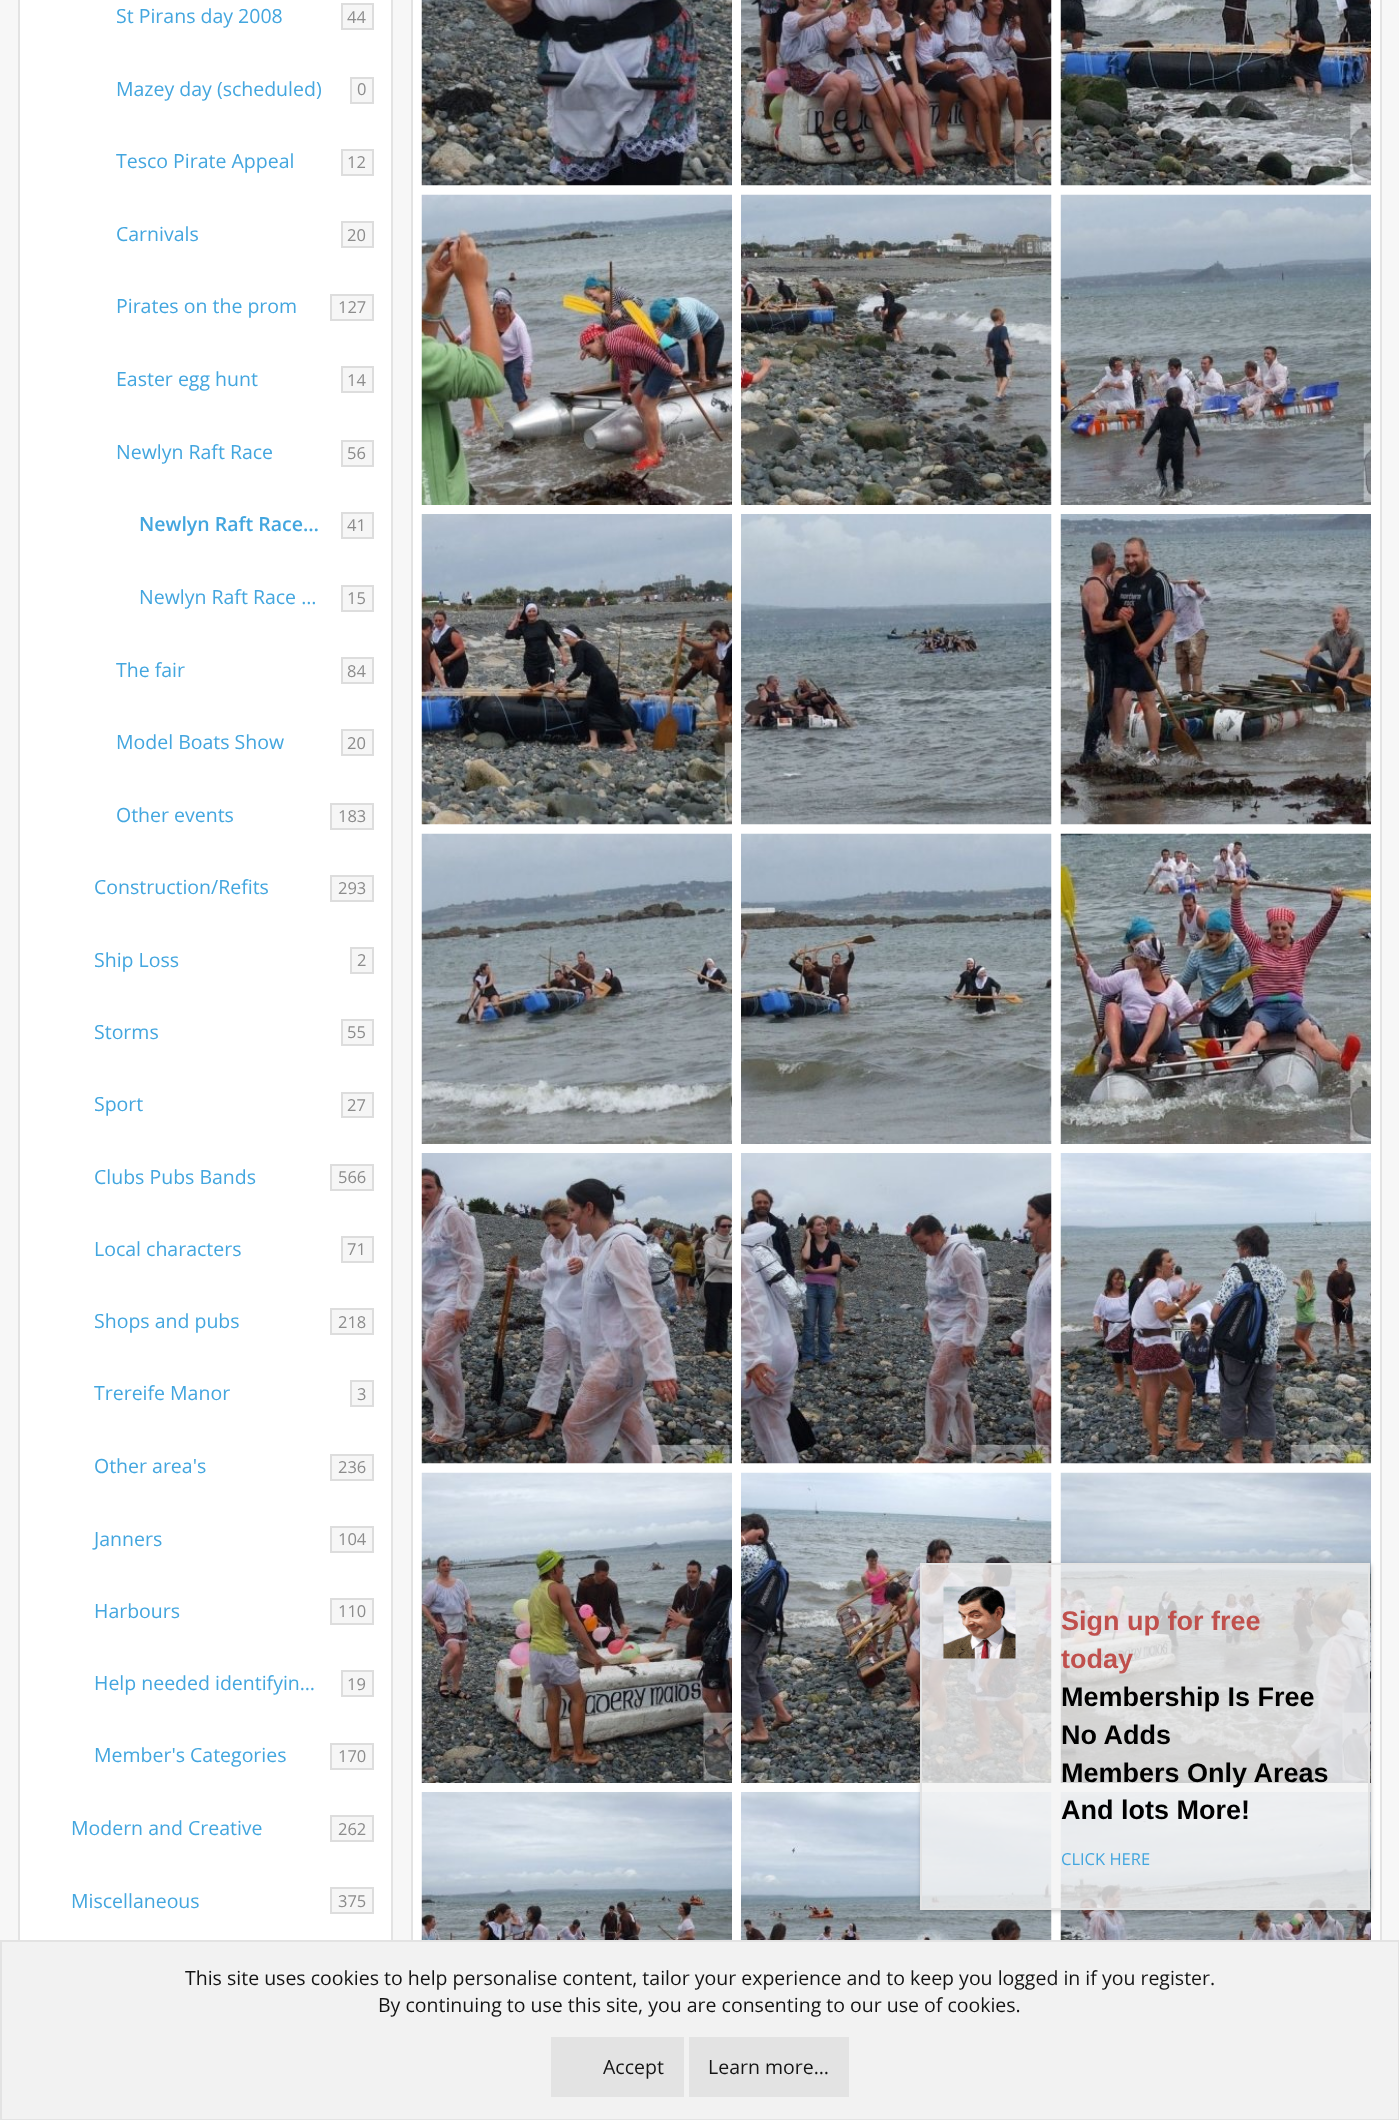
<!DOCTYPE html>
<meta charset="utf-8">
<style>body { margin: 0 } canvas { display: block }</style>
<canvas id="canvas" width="1399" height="2120"></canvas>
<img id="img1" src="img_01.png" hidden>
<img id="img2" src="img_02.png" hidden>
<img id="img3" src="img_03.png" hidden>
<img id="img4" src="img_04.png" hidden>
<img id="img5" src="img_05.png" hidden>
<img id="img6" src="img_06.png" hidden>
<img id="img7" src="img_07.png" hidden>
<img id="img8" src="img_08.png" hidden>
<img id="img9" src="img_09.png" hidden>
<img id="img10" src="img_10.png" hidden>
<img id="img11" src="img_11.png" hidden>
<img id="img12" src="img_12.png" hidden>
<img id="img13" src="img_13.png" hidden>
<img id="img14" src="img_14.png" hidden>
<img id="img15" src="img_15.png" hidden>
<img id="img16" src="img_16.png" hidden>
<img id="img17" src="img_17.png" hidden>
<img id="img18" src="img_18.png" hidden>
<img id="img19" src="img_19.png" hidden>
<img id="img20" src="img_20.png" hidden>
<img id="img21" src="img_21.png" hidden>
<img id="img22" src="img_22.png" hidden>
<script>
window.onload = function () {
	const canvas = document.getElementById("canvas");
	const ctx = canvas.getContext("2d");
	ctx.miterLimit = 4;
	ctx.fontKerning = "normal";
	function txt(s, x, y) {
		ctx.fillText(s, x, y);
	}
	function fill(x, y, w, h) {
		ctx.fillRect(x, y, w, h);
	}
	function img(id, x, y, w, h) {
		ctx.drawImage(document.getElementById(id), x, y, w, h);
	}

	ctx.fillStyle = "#F7F7F7";
	fill(0, 0, 1399, 2120);
	ctx.fillStyle = "#FFFFFF";
	fill(20, 0, 371, 1940);
	ctx.strokeStyle = "#E3E3E3";
	ctx.lineWidth = 2;
	ctx.strokeRect(19, -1, 373, 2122);
	ctx.fillStyle = "#F6F6F6";
	ctx.beginPath();
	ctx.rect(342, 4, 31, 25);
	ctx.fill();
	ctx.strokeStyle = "#DDDDDD";
	ctx.stroke();
	ctx.beginPath();
	ctx.rect(351, 78, 22, 25);
	ctx.fill();
	ctx.stroke();
	ctx.beginPath();
	ctx.rect(342, 150, 31, 25);
	ctx.fill();
	ctx.stroke();
	ctx.beginPath();
	ctx.rect(342, 222, 31, 25);
	ctx.fill();
	ctx.stroke();
	ctx.beginPath();
	ctx.rect(331, 295, 42, 25);
	ctx.fill();
	ctx.stroke();
	ctx.beginPath();
	ctx.rect(342, 367, 31, 25);
	ctx.fill();
	ctx.stroke();
	ctx.beginPath();
	ctx.rect(342, 441, 31, 25);
	ctx.fill();
	ctx.stroke();
	ctx.beginPath();
	ctx.rect(342, 513, 31, 25);
	ctx.fill();
	ctx.stroke();
	ctx.beginPath();
	ctx.rect(342, 586, 31, 25);
	ctx.fill();
	ctx.stroke();
	ctx.beginPath();
	ctx.rect(342, 658, 31, 25);
	ctx.fill();
	ctx.stroke();
	ctx.beginPath();
	ctx.rect(342, 730, 31, 25);
	ctx.fill();
	ctx.stroke();
	ctx.beginPath();
	ctx.rect(331, 804, 42, 25);
	ctx.fill();
	ctx.stroke();
	ctx.beginPath();
	ctx.rect(331, 876, 42, 25);
	ctx.fill();
	ctx.stroke();
	ctx.beginPath();
	ctx.rect(351, 948, 22, 25);
	ctx.fill();
	ctx.stroke();
	ctx.beginPath();
	ctx.rect(342, 1020, 31, 25);
	ctx.fill();
	ctx.stroke();
	ctx.beginPath();
	ctx.rect(342, 1093, 31, 24);
	ctx.fill();
	ctx.stroke();
	ctx.beginPath();
	ctx.rect(331, 1165, 42, 25);
	ctx.fill();
	ctx.stroke();
	ctx.beginPath();
	ctx.rect(342, 1237, 31, 25);
	ctx.fill();
	ctx.stroke();
	ctx.beginPath();
	ctx.rect(331, 1309, 42, 25);
	ctx.fill();
	ctx.stroke();
	ctx.beginPath();
	ctx.rect(351, 1381, 22, 25);
	ctx.fill();
	ctx.stroke();
	ctx.beginPath();
	ctx.rect(331, 1455, 42, 25);
	ctx.fill();
	ctx.stroke();
	ctx.beginPath();
	ctx.rect(331, 1527, 42, 25);
	ctx.fill();
	ctx.stroke();
	ctx.beginPath();
	ctx.rect(331, 1599, 42, 25);
	ctx.fill();
	ctx.stroke();
	ctx.beginPath();
	ctx.rect(342, 1671, 31, 25);
	ctx.fill();
	ctx.stroke();
	ctx.beginPath();
	ctx.rect(331, 1744, 42, 25);
	ctx.fill();
	ctx.stroke();
	ctx.beginPath();
	ctx.rect(331, 1816, 42, 25);
	ctx.fill();
	ctx.stroke();
	ctx.beginPath();
	ctx.rect(331, 1888, 42, 25);
	ctx.fill();
	ctx.stroke();
	ctx.fillStyle = "#FFFFFF";
	fill(413, 0, 967, 1940);
	ctx.strokeStyle = "#E3E3E3";
	ctx.strokeRect(412, -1, 969, 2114);
	img("img1", 421, 0, 311, 186);
	img("img2", 741, 0, 311, 186);
	img("img3", 1060, 0, 311, 186);
	img("img4", 421, 194, 311, 311);
	img("img5", 741, 194, 311, 311);
	img("img6", 1060, 194, 311, 311);
	img("img7", 421, 514, 311, 311);
	img("img8", 741, 514, 311, 311);
	img("img9", 1060, 514, 311, 311);
	img("img10", 421, 833, 311, 311);
	img("img11", 741, 833, 311, 311);
	img("img12", 1060, 833, 311, 311);
	img("img13", 421, 1153, 311, 311);
	img("img14", 741, 1153, 311, 311);
	img("img15", 1060, 1153, 311, 311);
	img("img16", 421, 1472, 311, 311);
	img("img17", 741, 1472, 311, 311);
	img("img18", 1060, 1472, 311, 311);
	img("img19", 421, 1792, 311, 148);
	img("img20", 741, 1792, 311, 148);
	img("img21", 1060, 1792, 311, 148);
	ctx.save();
	ctx.beginPath();
	ctx.moveTo(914, 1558);
	ctx.lineTo(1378, 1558);
	ctx.lineTo(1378, 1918);
	ctx.lineTo(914, 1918);
	ctx.closePath();
	ctx.moveTo(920, 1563);
	ctx.lineTo(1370, 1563);
	ctx.lineTo(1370, 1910);
	ctx.lineTo(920, 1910);
	ctx.closePath();
	ctx.clip("evenodd");
	ctx.fillStyle = "rgba(0, 0, 0, 0.25)";
	ctx.filter = "blur(2px)";
	ctx.beginPath();
	ctx.rect(921, 1565, 450, 346);
	ctx.fill();
	ctx.filter = "none";
	ctx.restore();
	ctx.fillStyle = "rgba(242, 242, 242, 0.8)";
	ctx.beginPath();
	ctx.rect(921, 1564, 448, 345);
	ctx.fill();
	ctx.stroke();
	img("img22", 943, 1586, 73, 73);
	ctx.fillStyle = "#F2F2F2";
	ctx.beginPath();
	ctx.rect(1, 1941, 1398, 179);
	ctx.fill();
	ctx.stroke();
	ctx.fillStyle = "#E3E3E3";
	fill(551, 2037, 133, 60);
	fill(689, 2037, 160, 60);
	ctx.font = "19.5px Open Sans";
	ctx.fillStyle = "#43A6DF";
	txt("St Pirans day 2008", 116, 23);
	ctx.font = "16.5px Open Sans";
	ctx.fillStyle = "#8C8C8C";
	txt("44", 347, 23);
	ctx.font = "19.5px Open Sans";
	ctx.fillStyle = "#43A6DF";
	txt("Mazey day (scheduled)", 116, 96);
	ctx.font = "16.5px Open Sans";
	ctx.fillStyle = "#8C8C8C";
	txt("0", 357, 95);
	ctx.font = "19.5px Open Sans";
	ctx.fillStyle = "#43A6DF";
	txt("Tesco Pirate Appeal", 116, 168);
	ctx.font = "16.5px Open Sans";
	ctx.fillStyle = "#8C8C8C";
	txt("12", 347, 168);
	ctx.font = "19.5px Open Sans";
	ctx.fillStyle = "#43A6DF";
	txt("Carnivals", 116, 241);
	ctx.font = "16.5px Open Sans";
	ctx.fillStyle = "#8C8C8C";
	txt("20", 347, 241);
	ctx.font = "19.5px Open Sans";
	ctx.fillStyle = "#43A6DF";
	txt("Pirates on the prom", 116, 313);
	ctx.font = "16.5px Open Sans";
	ctx.fillStyle = "#8C8C8C";
	txt("127", 338, 313);
	ctx.font = "19.5px Open Sans";
	ctx.fillStyle = "#43A6DF";
	txt("Easter egg hunt", 116, 386);
	ctx.font = "16.5px Open Sans";
	ctx.fillStyle = "#8C8C8C";
	txt("14", 347, 386);
	ctx.font = "19.5px Open Sans";
	ctx.fillStyle = "#43A6DF";
	txt("Newlyn Raft Race", 116, 459);
	ctx.font = "16.5px Open Sans";
	ctx.fillStyle = "#8C8C8C";
	txt("56", 347, 459);
	ctx.font = "600 19.5px Open Sans";
	ctx.fillStyle = "#43A6DF";
	txt("Newlyn Raft Race…", 139, 531);
	ctx.font = "16.5px Open Sans";
	ctx.fillStyle = "#8C8C8C";
	txt("41", 347, 531);
	ctx.font = "19.5px Open Sans";
	ctx.fillStyle = "#43A6DF";
	txt("Newlyn Raft Race …", 139, 604);
	ctx.font = "16.5px Open Sans";
	ctx.fillStyle = "#8C8C8C";
	txt("15", 347, 604);
	ctx.font = "19.5px Open Sans";
	ctx.fillStyle = "#43A6DF";
	txt("The fair", 116, 677);
	ctx.font = "16.5px Open Sans";
	ctx.fillStyle = "#8C8C8C";
	txt("84", 347, 677);
	ctx.font = "19.5px Open Sans";
	ctx.fillStyle = "#43A6DF";
	txt("Model Boats Show", 116, 749);
	ctx.font = "16.5px Open Sans";
	ctx.fillStyle = "#8C8C8C";
	txt("20", 347, 749);
	ctx.font = "19.5px Open Sans";
	ctx.fillStyle = "#43A6DF";
	txt("Other events", 116, 822);
	ctx.font = "16.5px Open Sans";
	ctx.fillStyle = "#8C8C8C";
	txt("183", 338, 822);
	ctx.font = "19.5px Open Sans";
	ctx.fillStyle = "#43A6DF";
	txt("Construction/Refits", 94, 894);
	ctx.font = "16.5px Open Sans";
	ctx.fillStyle = "#8C8C8C";
	txt("293", 338, 894);
	ctx.font = "19.5px Open Sans";
	ctx.fillStyle = "#43A6DF";
	txt("Ship Loss", 94, 967);
	ctx.font = "16.5px Open Sans";
	ctx.fillStyle = "#8C8C8C";
	txt("2", 357, 966);
	ctx.font = "19.5px Open Sans";
	ctx.fillStyle = "#43A6DF";
	txt("Storms", 94, 1039);
	ctx.font = "16.5px Open Sans";
	ctx.fillStyle = "#8C8C8C";
	txt("55", 347, 1038);
	ctx.font = "19.5px Open Sans";
	ctx.fillStyle = "#43A6DF";
	txt("Sport", 94, 1111);
	ctx.font = "16.5px Open Sans";
	ctx.fillStyle = "#8C8C8C";
	txt("27", 347, 1111);
	ctx.font = "19.5px Open Sans";
	ctx.fillStyle = "#43A6DF";
	txt("Clubs Pubs Bands", 94, 1184);
	ctx.font = "16.5px Open Sans";
	ctx.fillStyle = "#8C8C8C";
	txt("566", 338, 1183);
	ctx.font = "19.5px Open Sans";
	ctx.fillStyle = "#43A6DF";
	txt("Local characters", 94, 1256);
	ctx.font = "16.5px Open Sans";
	ctx.fillStyle = "#8C8C8C";
	txt("71", 347, 1255);
	ctx.font = "19.5px Open Sans";
	ctx.fillStyle = "#43A6DF";
	txt("Shops and pubs", 94, 1328);
	ctx.font = "16.5px Open Sans";
	ctx.fillStyle = "#8C8C8C";
	txt("218", 338, 1328);
	ctx.font = "19.5px Open Sans";
	ctx.fillStyle = "#43A6DF";
	txt("Trereife Manor", 94, 1400);
	ctx.font = "16.5px Open Sans";
	ctx.fillStyle = "#8C8C8C";
	txt("3", 357, 1400);
	ctx.font = "19.5px Open Sans";
	ctx.fillStyle = "#43A6DF";
	txt("Other area's", 94, 1473);
	ctx.font = "16.5px Open Sans";
	ctx.fillStyle = "#8C8C8C";
	txt("236", 338, 1473);
	ctx.font = "19.5px Open Sans";
	ctx.fillStyle = "#43A6DF";
	txt("Janners", 94, 1546);
	ctx.font = "16.5px Open Sans";
	ctx.fillStyle = "#8C8C8C";
	txt("104", 338, 1545);
	ctx.font = "19.5px Open Sans";
	ctx.fillStyle = "#43A6DF";
	txt("Harbours", 94, 1618);
	ctx.font = "16.5px Open Sans";
	ctx.fillStyle = "#8C8C8C";
	txt("110", 338, 1617);
	ctx.font = "19.5px Open Sans";
	ctx.fillStyle = "#43A6DF";
	txt("Help needed identifyin…", 94, 1690);
	ctx.font = "16.5px Open Sans";
	ctx.fillStyle = "#8C8C8C";
	txt("19", 347, 1690);
	ctx.font = "19.5px Open Sans";
	ctx.fillStyle = "#43A6DF";
	txt("Member's Categories", 94, 1762);
	ctx.font = "16.5px Open Sans";
	ctx.fillStyle = "#8C8C8C";
	txt("170", 338, 1762);
	ctx.font = "19.5px Open Sans";
	ctx.fillStyle = "#43A6DF";
	txt("Modern and Creative", 71, 1835);
	ctx.font = "16.5px Open Sans";
	ctx.fillStyle = "#8C8C8C";
	txt("262", 338, 1835);
	ctx.font = "19.5px Open Sans";
	ctx.fillStyle = "#43A6DF";
	txt("Miscellaneous", 71, 1908);
	ctx.font = "16.5px Open Sans";
	ctx.fillStyle = "#8C8C8C";
	txt("375", 338, 1907);
	ctx.font = "bold 27px Liberation Sans";
	ctx.fillStyle = "#C0504D";
	txt("Sign up for free", 1061, 1630);
	txt("today", 1061, 1668);
	ctx.fillStyle = "#000000";
	txt("Membership Is Free", 1061, 1706);
	txt("No Adds", 1061, 1744);
	txt("Members Only Areas", 1061, 1782);
	txt("And lots More!", 1061, 1819);
	ctx.font = "16.5px Open Sans";
	ctx.fillStyle = "#43A6DF";
	txt("CLICK HERE", 1061, 1865);
	ctx.font = "19.5px Open Sans";
	ctx.fillStyle = "#141414";
	txt("This site uses cookies to help personalise content, tailor your experience and to keep you logged in if you register.", 185, 1985);
	txt("By continuing to use this site, you are consenting to our use of cookies.", 378, 2012);
	txt("Accept", 603, 2074);
	txt("Learn more…", 708, 2074);
};
</script>
